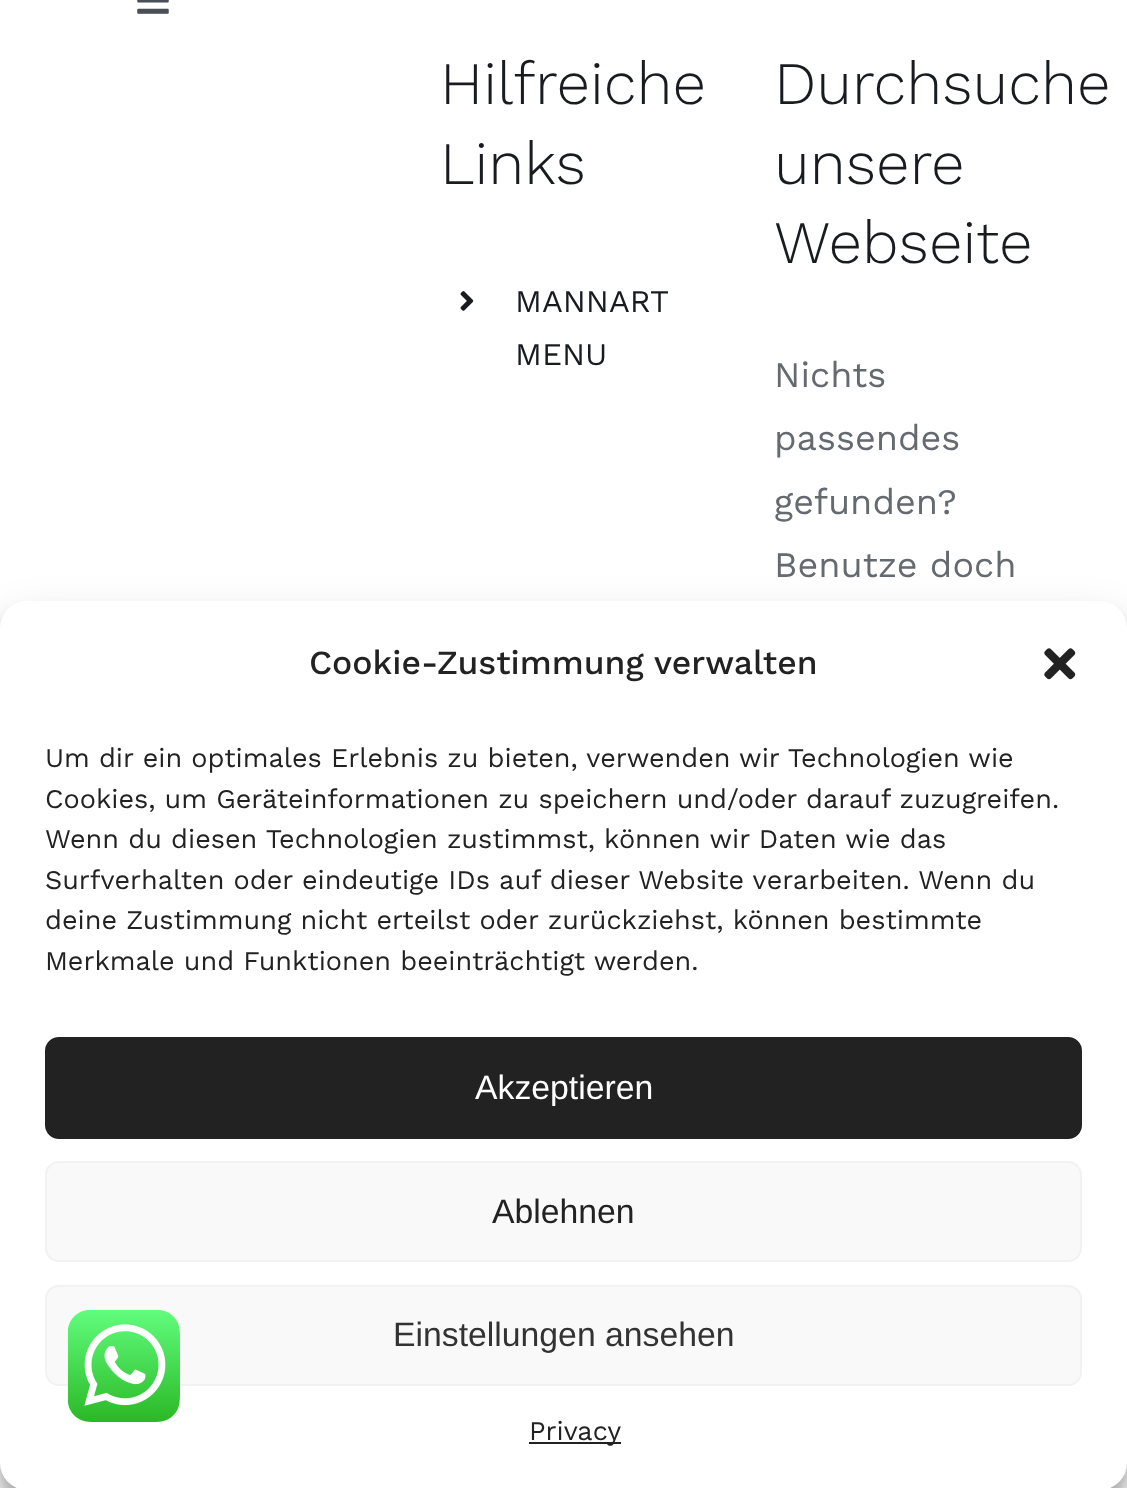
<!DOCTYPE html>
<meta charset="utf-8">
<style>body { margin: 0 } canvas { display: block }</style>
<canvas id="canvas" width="1127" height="1488"></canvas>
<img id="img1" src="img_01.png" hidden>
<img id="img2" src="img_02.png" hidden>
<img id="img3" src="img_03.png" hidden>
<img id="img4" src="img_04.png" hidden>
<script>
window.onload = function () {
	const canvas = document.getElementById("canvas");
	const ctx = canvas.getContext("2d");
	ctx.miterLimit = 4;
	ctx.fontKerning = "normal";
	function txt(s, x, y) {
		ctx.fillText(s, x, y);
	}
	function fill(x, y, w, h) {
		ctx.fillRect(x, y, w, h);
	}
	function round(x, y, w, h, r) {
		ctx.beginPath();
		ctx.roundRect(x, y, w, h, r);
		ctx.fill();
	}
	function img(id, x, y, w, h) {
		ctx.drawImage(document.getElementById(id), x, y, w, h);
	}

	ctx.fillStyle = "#FFFFFF";
	fill(0, 0, 1127, 1488);
	img("img1", 137, 0, 32, 14);
	img("img2", 460, 291, 14, 20);
	ctx.fillStyle = "rgba(0, 0, 0, 0.23)";
	ctx.filter = "blur(7px)";
	ctx.beginPath();
	ctx.roundRect(0, 614, 1127, 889, 27);
	ctx.fill();
	ctx.filter = "none";
	ctx.fillStyle = "rgba(0, 0, 0, 0.19)";
	ctx.filter = "blur(22.5px)";
	ctx.beginPath();
	ctx.roundRect(0, 623, 1127, 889, 27);
	ctx.fill();
	ctx.filter = "none";
	ctx.fillStyle = "#808080";
	ctx.filter = "blur(5.5px)";
	ctx.beginPath();
	ctx.roundRect(970, 1323, 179, 135, 5);
	ctx.fill();
	ctx.filter = "none";
	ctx.fillStyle = "#FFFFFF";
	round(0, 601, 1127, 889, 27);
	img("img3", 1044, 648, 32, 32);
	ctx.fillStyle = "#222222";
	ctx.beginPath();
	ctx.roundRect(46, 1038, 1035, 100, 13);
	ctx.fill();
	ctx.strokeStyle = "#222222";
	ctx.lineWidth = 2;
	ctx.stroke();
	ctx.fillStyle = "#F9F9F9";
	ctx.beginPath();
	ctx.roundRect(46, 1162, 1035, 99, 13);
	ctx.fill();
	ctx.strokeStyle = "#F2F2F2";
	ctx.stroke();
	ctx.beginPath();
	ctx.roundRect(46, 1286, 1035, 99, 13);
	ctx.fill();
	ctx.stroke();
	ctx.fillStyle = "#222222";
	fill(529, 1442, 92, 2);
	img("img4", 68, 1310, 112, 112);
	ctx.font = "300 60.25px Work Sans";
	ctx.fillStyle = "#181B20";
	txt("Hilfreiche", 440, 104);
	txt("Links", 440, 184);
	ctx.font = "31.5px Work Sans";
	txt("MANNART", 515, 312);
	txt("MENU", 515, 365);
	ctx.font = "300 60.25px Work Sans";
	txt("Durchsuche", 774, 104);
	txt("unsere", 774, 184);
	txt("Webseite", 774, 263);
	ctx.font = "36px Work Sans";
	ctx.fillStyle = "#656A70";
	txt("Nichts", 774, 387);
	txt("passendes", 774, 450);
	txt("gefunden?", 774, 514);
	txt("Benutze doch", 774, 577);
	ctx.font = "500 33.75px Work Sans";
	ctx.fillStyle = "#222222";
	txt("Cookie-Zustimmung verwalten", 309, 674);
	ctx.font = "27px Work Sans";
	txt("Um dir ein optimales Erlebnis zu bieten, verwenden wir Technologien wie", 45, 767);
	txt("Cookies, um Geräteinformationen zu speichern und/oder darauf zuzugreifen.", 45, 808);
	txt("Wenn du diesen Technologien zustimmst, können wir Daten wie das", 45, 848);
	txt("Surfverhalten oder eindeutige IDs auf dieser Website verarbeiten. Wenn du", 45, 889);
	txt("deine Zustimmung nicht erteilst oder zurückziehst, können bestimmte", 45, 929);
	txt("Merkmale und Funktionen beeinträchtigt werden.", 45, 970);
	ctx.font = "33.75px Liberation Sans";
	ctx.fillStyle = "#FFFFFF";
	txt("Akzeptieren", 475, 1099);
	ctx.fillStyle = "#222222";
	txt("Ablehnen", 492, 1223);
	ctx.fillStyle = "#333333";
	txt("Einstellungen ansehen", 393, 1346);
	ctx.font = "27px Work Sans";
	ctx.fillStyle = "#222222";
	txt("Privacy", 529, 1440);
};
</script>
